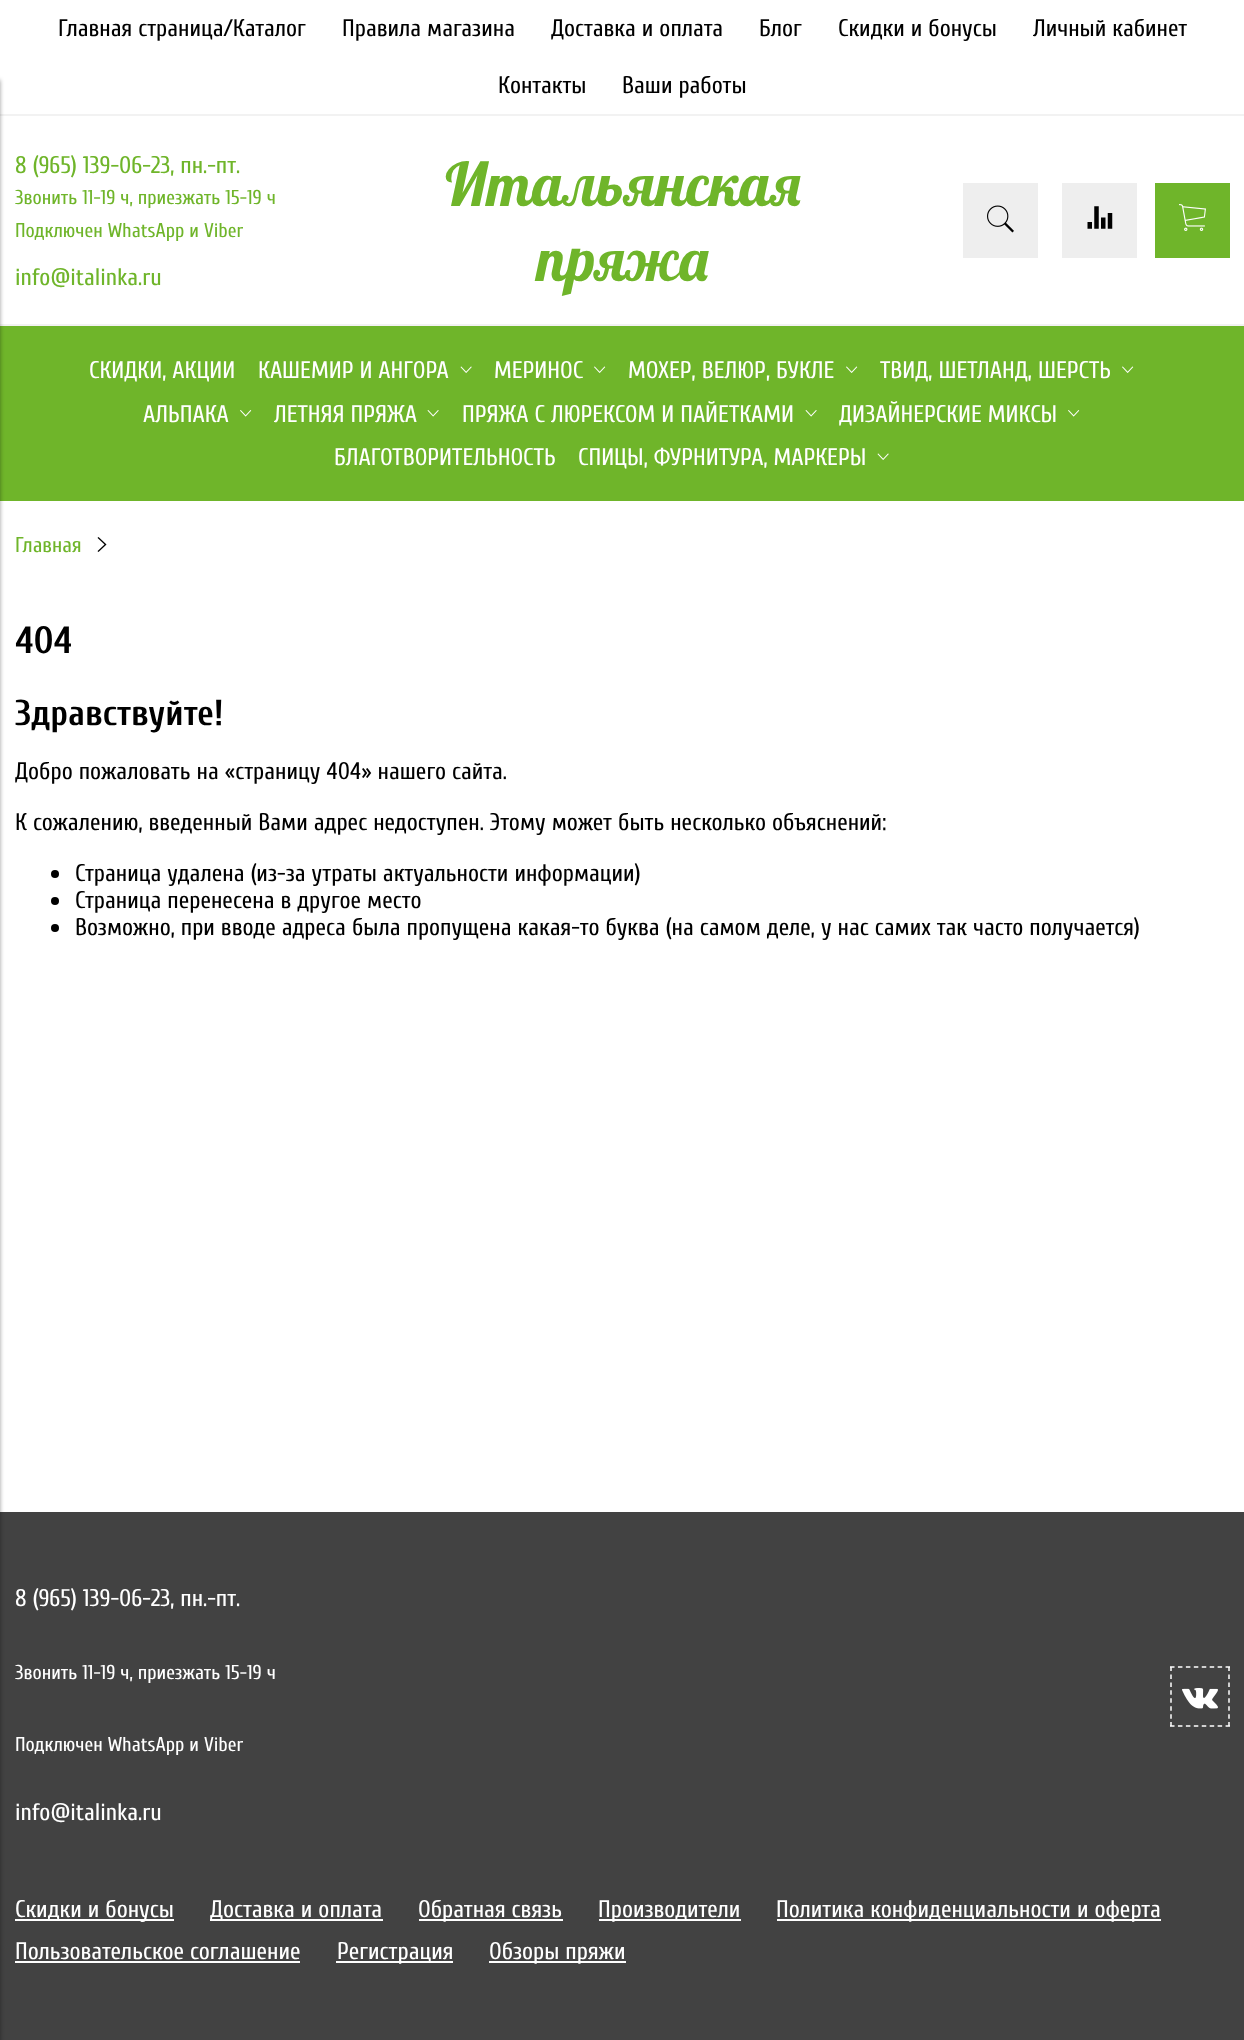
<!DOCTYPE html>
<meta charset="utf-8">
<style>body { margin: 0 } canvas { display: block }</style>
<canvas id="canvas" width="1244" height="2040"></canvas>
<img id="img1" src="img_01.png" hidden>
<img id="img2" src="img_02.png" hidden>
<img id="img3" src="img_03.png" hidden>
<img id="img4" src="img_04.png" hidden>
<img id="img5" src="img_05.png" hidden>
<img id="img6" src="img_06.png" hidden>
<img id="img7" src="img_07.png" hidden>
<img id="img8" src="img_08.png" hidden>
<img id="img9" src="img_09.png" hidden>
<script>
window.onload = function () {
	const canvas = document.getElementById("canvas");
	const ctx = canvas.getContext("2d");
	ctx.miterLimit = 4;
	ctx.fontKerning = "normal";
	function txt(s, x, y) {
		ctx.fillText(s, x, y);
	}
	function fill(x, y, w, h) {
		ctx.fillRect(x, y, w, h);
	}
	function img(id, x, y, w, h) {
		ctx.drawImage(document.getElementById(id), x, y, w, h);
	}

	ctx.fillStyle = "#424242";
	fill(0, 0, 1244, 2040);
	ctx.fillStyle = "#FFFFFF";
	fill(0, 0, 1244, 1512);
	ctx.fillStyle = "#F2F2F2";
	fill(0, 114, 1244, 2);
	fill(0, 324, 1244, 2);
	ctx.fillStyle = "#6FB52A";
	fill(0, 326, 1244, 175);
	ctx.fillStyle = "rgba(0, 0, 0, 0.4)";
	ctx.filter = "blur(2px)";
	ctx.beginPath();
	ctx.rect(-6, 80, 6, 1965);
	ctx.fill();
	ctx.filter = "none";
	ctx.fillStyle = "#EEEEEE";
	fill(963, 183, 75, 75);
	img("img1", 987, 205, 27, 28);
	fill(1062, 183, 75, 75);
	img("img2", 1087, 206, 26, 23);
	ctx.fillStyle = "#6FB52A";
	fill(1155, 183, 75, 75);
	img("img3", 1179, 204, 27, 27);
	img("img4", 460, 366, 12, 7);
	img("img5", 594, 366, 12, 7);
	img("img5", 846, 366, 12, 7);
	img("img5", 1122, 366, 12, 7);
	img("img6", 240, 410, 12, 7);
	img("img7", 427, 410, 12, 7);
	img("img7", 805, 410, 12, 7);
	img("img6", 1068, 410, 12, 7);
	img("img4", 877, 453, 12, 7);
	img("img8", 97, 537, 10, 15);
	ctx.fillStyle = "#000000";
	ctx.beginPath();
	ctx.arc(55, 874, 4, 0, Math.PI * 2);
	ctx.fill();
	ctx.beginPath();
	ctx.arc(55, 901, 4, 0, Math.PI * 2);
	ctx.fill();
	ctx.beginPath();
	ctx.arc(55, 928, 4, 0, Math.PI * 2);
	ctx.fill();
	ctx.beginPath();
	ctx.moveTo(1170, 1667);
	ctx.lineTo(1230, 1667);
	ctx.moveTo(1229, 1666.5);
	ctx.lineTo(1229, 1726.5);
	ctx.moveTo(1170, 1726);
	ctx.lineTo(1230, 1726);
	ctx.moveTo(1171, 1666.5);
	ctx.lineTo(1171, 1726.5);
	ctx.strokeStyle = "#FFFFFF";
	ctx.lineWidth = 1.5;
	ctx.setLineDash([4.5, 3.44]);
	ctx.stroke();
	img("img9", 1182, 1688, 36, 21);
	ctx.fillStyle = "#FFFFFF";
	fill(15, 1919, 159, 2);
	fill(210, 1919, 173, 2);
	fill(419, 1919, 144, 2);
	fill(599, 1919, 142, 2);
	fill(777, 1919, 384, 2);
	fill(15, 1961, 285, 2);
	fill(336, 1961, 117, 2);
	fill(489, 1961, 137, 2);
	ctx.font = "24px Cuprum";
	ctx.fillStyle = "#000000";
	txt("Главная страница/Каталог", 58, 36);
	txt("Правила магазина", 342, 36);
	txt("Доставка и оплата", 551, 36);
	txt("Блог", 759, 36);
	txt("Скидки и бонусы", 838, 36);
	txt("Личный кабинет", 1033, 36);
	txt("Контакты", 498, 93);
	txt("Ваши работы", 622, 93);
	ctx.fillStyle = "#6FB52A";
	txt("8 (965) 139-06-23, пн.-пт.", 15, 173);
	ctx.font = "20px Cuprum";
	txt("Звонить 11-19 ч, приезжать 15-19 ч", 15, 204);
	txt("Подключен WhatsApp и Viber", 15, 237);
	ctx.font = "24px Cuprum";
	txt("info@italinka.ru", 15, 285);
	ctx.font = "60px Lobster";
	txt("Итальянская", 445, 206);
	txt("пряжа", 537, 281);
	ctx.font = "24px Cuprum";
	ctx.fillStyle = "#FFFFFF";
	txt("СКИДКИ, АКЦИИ", 89, 378);
	txt("КАШЕМИР И АНГОРА", 258, 378);
	txt("МЕРИНОС", 494, 378);
	txt("МОХЕР, ВЕЛЮР, БУКЛЕ", 628, 378);
	txt("ТВИД, ШЕТЛАНД, ШЕРСТЬ", 880, 378);
	txt("АЛЬПАКА", 143, 422);
	txt("ЛЕТНЯЯ ПРЯЖА", 274, 422);
	txt("ПРЯЖА С ЛЮРЕКСОМ И ПАЙЕТКАМИ", 462, 422);
	txt("ДИЗАЙНЕРСКИЕ МИКСЫ", 839, 422);
	txt("БЛАГОТВОРИТЕЛЬНОСТЬ", 334, 465);
	txt("СПИЦЫ, ФУРНИТУРА, МАРКЕРЫ", 578, 465);
	ctx.font = "21.5px Cuprum";
	ctx.fillStyle = "#6FB52A";
	txt("Главная", 15, 552);
	ctx.font = "bold 38px Cuprum";
	ctx.fillStyle = "#000000";
	txt("404", 15, 653);
	ctx.font = "bold 36px Cuprum";
	txt("Здравствуйте!", 15, 725);
	ctx.font = "24px Cuprum";
	txt("Добро пожаловать на «страницу 404» нашего сайта.", 15, 779);
	txt("К сожалению, введенный Вами адрес недоступен. Этому может быть несколько объяснений:", 15, 830);
	txt("Страница удалена (из-за утраты актуальности информации)", 75, 881);
	txt("Страница перенесена в другое место", 75, 908);
	txt("Возможно, при вводе адреса была пропущена какая-то буква (на самом деле, у нас самих так часто получается)", 75, 935);
	ctx.fillStyle = "#FFFFFF";
	txt("8 (965) 139-06-23, пн.-пт.", 15, 1606);
	ctx.font = "20px Cuprum";
	txt("Звонить 11-19 ч, приезжать 15-19 ч", 15, 1679);
	txt("Подключен WhatsApp и Viber", 15, 1751);
	ctx.font = "24px Cuprum";
	txt("info@italinka.ru", 15, 1820);
	txt("Скидки и бонусы", 15, 1917);
	txt("Доставка и оплата", 210, 1917);
	txt("Обратная связь", 418, 1917);
	txt("Производители", 598, 1917);
	txt("Политика конфиденциальности и оферта", 776, 1917);
	txt("Пользовательское соглашение", 15, 1959);
	txt("Регистрация", 337, 1959);
	txt("Обзоры пряжи", 489, 1959);
};
</script>
